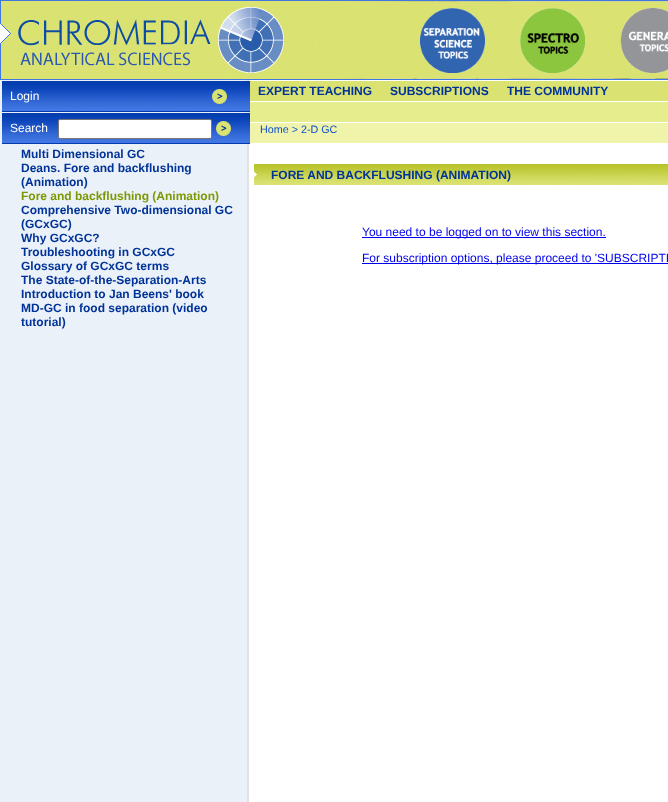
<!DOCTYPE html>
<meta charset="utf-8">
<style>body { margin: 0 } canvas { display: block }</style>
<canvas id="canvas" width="668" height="802"></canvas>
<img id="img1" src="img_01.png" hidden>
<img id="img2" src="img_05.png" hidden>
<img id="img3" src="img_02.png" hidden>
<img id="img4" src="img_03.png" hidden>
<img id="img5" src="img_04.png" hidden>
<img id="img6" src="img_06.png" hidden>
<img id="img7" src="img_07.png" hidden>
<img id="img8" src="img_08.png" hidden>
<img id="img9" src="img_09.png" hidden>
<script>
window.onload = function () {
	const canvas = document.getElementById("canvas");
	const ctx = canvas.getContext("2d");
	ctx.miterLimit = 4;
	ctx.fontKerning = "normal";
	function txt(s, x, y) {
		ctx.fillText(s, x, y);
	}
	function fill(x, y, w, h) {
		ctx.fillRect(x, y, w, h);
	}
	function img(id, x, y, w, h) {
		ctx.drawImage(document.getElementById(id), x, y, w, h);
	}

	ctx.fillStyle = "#FFFFFF";
	fill(0, 0, 668, 802);
	img("img1", 0, 80, 249, 722);
	img("img2", 0, 0, 668, 80);
	img("img3", 420, 8, 65, 65);
	img("img4", 520, 8, 65, 65);
	img("img5", 620, 8, 48, 65);
	ctx.fillStyle = "#E6ED8D";
	fill(249, 102, 419, 20);
	img("img6", 2, 81, 248, 31);
	img("img7", 212, 89, 15, 15);
	img("img6", 2, 113, 248, 31);
	ctx.fillStyle = "#FFFFFF";
	ctx.beginPath();
	ctx.roundRect(58.5, 119.5, 153, 19, 1.5);
	ctx.fill();
	ctx.strokeStyle = "#767676";
	ctx.stroke();
	img("img8", 216, 121, 15, 15);
	ctx.fillStyle = "#DAE272";
	fill(250, 81, 418, 20);
	ctx.fillStyle = "#F0F4AA";
	fill(250, 123, 418, 20);
	img("img9", 254, 164, 414, 21);
	ctx.fillStyle = "#0000EE";
	fill(362, 237, 244, 1);
	fill(362, 263, 306, 1);
	ctx.font = "12px Liberation Sans";
	ctx.fillStyle = "#FFFFFF";
	txt("Login", 10, 100);
	txt("Search", 10, 132);
	ctx.font = "bold 12px Liberation Sans";
	ctx.fillStyle = "#003398";
	txt("Multi Dimensional GC", 21, 158);
	txt("Deans. Fore and backflushing", 21, 172);
	txt("(Animation)", 21, 186);
	ctx.fillStyle = "#7D9802";
	txt("Fore and backflushing (Animation)", 21, 200);
	ctx.fillStyle = "#003398";
	txt("Comprehensive Two-dimensional GC", 21, 214);
	txt("(GCxGC)", 21, 228);
	txt("Why GCxGC?", 21, 242);
	txt("Troubleshooting in GCxGC", 21, 256);
	txt("Glossary of GCxGC terms", 21, 270);
	txt("The State-of-the-Separation-Arts", 21, 284);
	txt("Introduction to Jan Beens' book", 21, 298);
	txt("MD-GC in food separation (video", 21, 312);
	txt("tutorial)", 21, 326);
	txt("EXPERT TEACHING", 258, 95);
	txt("SUBSCRIPTIONS", 390, 95);
	txt("THE COMMUNITY", 507, 95);
	ctx.font = "10.75px Liberation Sans";
	ctx.fillStyle = "#0D4DD1";
	txt("Home > 2-D GC", 260, 133);
	ctx.font = "bold 12px Liberation Sans";
	ctx.fillStyle = "#003398";
	txt("FORE AND BACKFLUSHING (ANIMATION)", 271, 179);
	ctx.font = "12px Liberation Sans";
	ctx.fillStyle = "#0000EE";
	txt("You need to be logged on to view this section.", 362, 236);
	txt("For subscription options, please proceed to 'SUBSCRIPTI", 362, 262);
};
</script>
